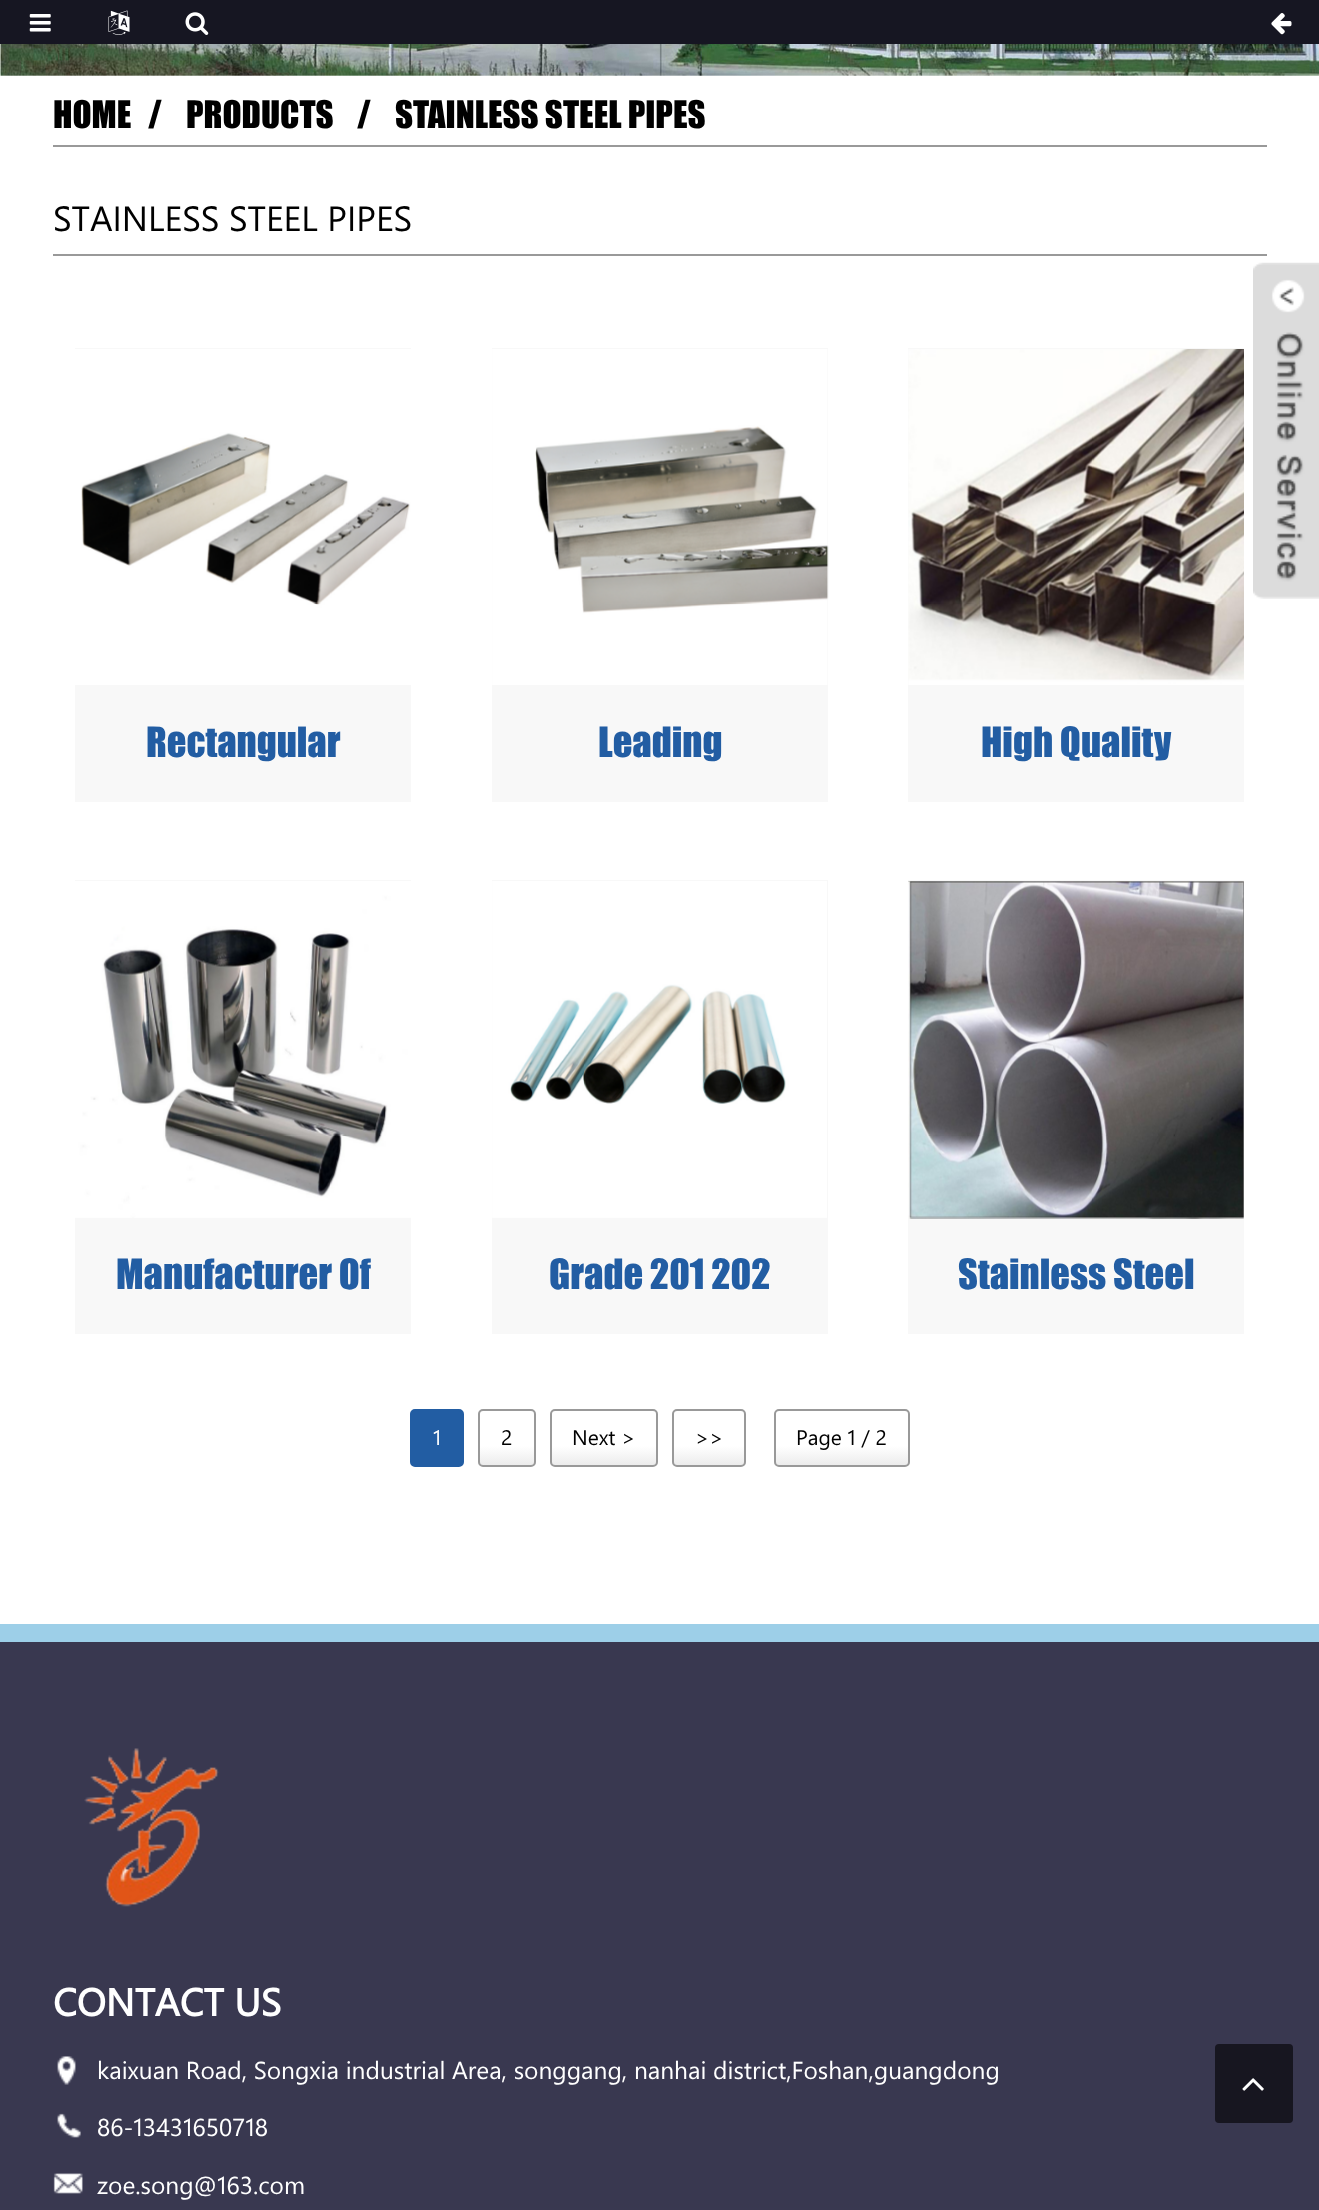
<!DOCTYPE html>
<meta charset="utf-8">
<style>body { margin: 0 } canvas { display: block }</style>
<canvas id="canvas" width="1319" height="2210"></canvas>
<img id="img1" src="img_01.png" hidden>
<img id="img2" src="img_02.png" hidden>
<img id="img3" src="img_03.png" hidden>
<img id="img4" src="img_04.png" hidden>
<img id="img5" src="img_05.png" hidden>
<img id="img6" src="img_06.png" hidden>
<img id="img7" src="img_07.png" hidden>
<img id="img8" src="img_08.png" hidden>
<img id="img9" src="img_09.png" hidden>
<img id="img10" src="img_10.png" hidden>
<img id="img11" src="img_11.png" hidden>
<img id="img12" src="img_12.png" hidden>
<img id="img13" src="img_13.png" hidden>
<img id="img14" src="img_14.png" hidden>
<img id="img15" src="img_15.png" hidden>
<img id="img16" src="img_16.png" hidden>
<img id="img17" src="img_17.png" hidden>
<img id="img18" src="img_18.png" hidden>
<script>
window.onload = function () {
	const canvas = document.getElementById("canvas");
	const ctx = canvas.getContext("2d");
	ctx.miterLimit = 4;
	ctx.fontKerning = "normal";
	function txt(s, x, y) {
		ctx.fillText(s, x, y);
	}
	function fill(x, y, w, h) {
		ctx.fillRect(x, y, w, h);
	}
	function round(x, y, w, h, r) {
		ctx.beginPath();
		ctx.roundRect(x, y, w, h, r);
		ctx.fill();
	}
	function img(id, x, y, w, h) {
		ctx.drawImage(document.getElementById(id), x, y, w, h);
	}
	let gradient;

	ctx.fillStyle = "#FFFFFF";
	fill(0, 0, 1319, 2210);
	ctx.fillStyle = "#161622";
	fill(0, 0, 1319, 44);
	img("img1", 29, 14, 22, 18);
	img("img2", 108, 10, 22, 25);
	img("img3", 185, 12, 24, 23);
	img("img4", 1271, 13, 21, 22);
	img("img5", 0, 44, 1319, 32);
	img("img6", 0, 75, 1319, 1);
	ctx.fillStyle = "#999999";
	fill(53, 145, 1214, 2);
	fill(53, 254, 1214, 2);
	ctx.fillStyle = "#F8F8F8";
	fill(75, 348, 336, 454);
	img("img7", 75, 349, 336, 336);
	fill(492, 348, 336, 454);
	img("img8", 492, 349, 337, 336);
	fill(908, 348, 336, 454);
	img("img9", 908, 349, 336, 336);
	fill(75, 880, 336, 454);
	img("img10", 75, 881, 336, 337);
	fill(492, 880, 336, 454);
	img("img11", 492, 881, 335, 337);
	fill(908, 880, 336, 454);
	img("img12", 908, 881, 336, 338);
	ctx.fillStyle = "#225DA3";
	ctx.beginPath();
	ctx.roundRect(411, 1410, 52, 56, 4);
	ctx.fill();
	ctx.strokeStyle = "#225DA3";
	ctx.lineWidth = 2;
	ctx.stroke();
	ctx.save();
	ctx.beginPath();
	ctx.roundRect(478, 1409, 58, 58, 5);
	ctx.clip();
	gradient = ctx.createLinearGradient(507, 1411, 507, 1465);
	gradient.addColorStop(0.65, "#FFFFFF");
	gradient.addColorStop(1, "#ECECEC");
	ctx.fillStyle = gradient;
	fill(478, 1411, 58, 54);
	ctx.restore();
	ctx.beginPath();
	ctx.roundRect(479, 1410, 56, 56, 4);
	ctx.strokeStyle = "#999999";
	ctx.stroke();
	ctx.save();
	ctx.beginPath();
	ctx.roundRect(550, 1409, 108, 58, 5);
	ctx.clip();
	gradient = ctx.createLinearGradient(604, 1411, 604, 1465);
	gradient.addColorStop(0.65, "#FFFFFF");
	gradient.addColorStop(1, "#ECECEC");
	ctx.fillStyle = gradient;
	fill(550, 1411, 108, 54);
	ctx.restore();
	ctx.beginPath();
	ctx.roundRect(551, 1410, 106, 56, 4);
	ctx.stroke();
	ctx.save();
	ctx.beginPath();
	ctx.roundRect(672, 1409, 74, 58, 5);
	ctx.clip();
	gradient = ctx.createLinearGradient(709, 1411, 709, 1465);
	gradient.addColorStop(0.65, "#FFFFFF");
	gradient.addColorStop(1, "#ECECEC");
	ctx.fillStyle = gradient;
	fill(672, 1411, 74, 54);
	ctx.restore();
	ctx.beginPath();
	ctx.roundRect(673, 1410, 72, 56, 4);
	ctx.stroke();
	ctx.save();
	ctx.beginPath();
	ctx.roundRect(774, 1409, 136, 58, 5);
	ctx.clip();
	gradient = ctx.createLinearGradient(842, 1411, 842, 1465);
	gradient.addColorStop(0.65, "#FFFFFF");
	gradient.addColorStop(1, "#ECECEC");
	ctx.fillStyle = gradient;
	fill(774, 1411, 136, 54);
	ctx.restore();
	ctx.beginPath();
	ctx.roundRect(775, 1410, 134, 56, 4);
	ctx.stroke();
	img("img13", 1253, 262, 66, 337);
	ctx.fillStyle = "#393850";
	fill(0, 1642, 1319, 568);
	ctx.fillStyle = "#9DCFE8";
	fill(0, 1624, 1319, 18);
	img("img14", 84, 1748, 135, 159);
	img("img15", 57, 2056, 19, 29);
	img("img16", 57, 2113, 24, 25);
	img("img17", 53, 2173, 30, 21);
	ctx.fillStyle = "#171620";
	round(1215, 2044, 78, 79, 4);
	img("img18", 1242, 2078, 22, 13);
	ctx.font = "35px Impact";
	ctx.fillStyle = "#000000";
	txt("HOME", 53, 128);
	txt("/", 148, 128);
	txt("PRODUCTS", 186, 128);
	txt("/", 357, 128);
	txt("STAINLESS STEEL PIPES", 395, 128);
	ctx.font = "35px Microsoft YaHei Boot";
	txt("STAINLESS STEEL PIPES", 53, 231);
	ctx.font = "38.5px Impact";
	ctx.fillStyle = "#225DA3";
	txt("Rectangular", 146, 757);
	txt("Leading", 598, 757);
	txt("High Quality", 981, 757);
	txt("Manufacturer Of", 116, 1289);
	txt("Grade 201 202", 549, 1289);
	txt("Stainless Steel", 958, 1289);
	ctx.font = "21px Microsoft YaHei Boot";
	ctx.fillStyle = "#FFFFFF";
	txt("1", 433, 1445);
	ctx.fillStyle = "#000000";
	txt("2", 501, 1445);
	txt("Next >", 572, 1445);
	txt(">>", 695, 1445);
	txt("Page 1 / 2", 796, 1445);
	ctx.font = "bold 38.5px Microsoft YaHei Boot";
	ctx.fillStyle = "#FFFFFF";
	txt("CONTACT US", 53, 2016);
	ctx.font = "24.5px Microsoft YaHei Boot";
	txt("kaixuan Road, Songxia industrial Area, songgang, nanhai district,Foshan,guangdong", 97, 2079);
	txt("86-13431650718", 97, 2136);
	txt("zoe.song@163.com", 97, 2194);
};
</script>
